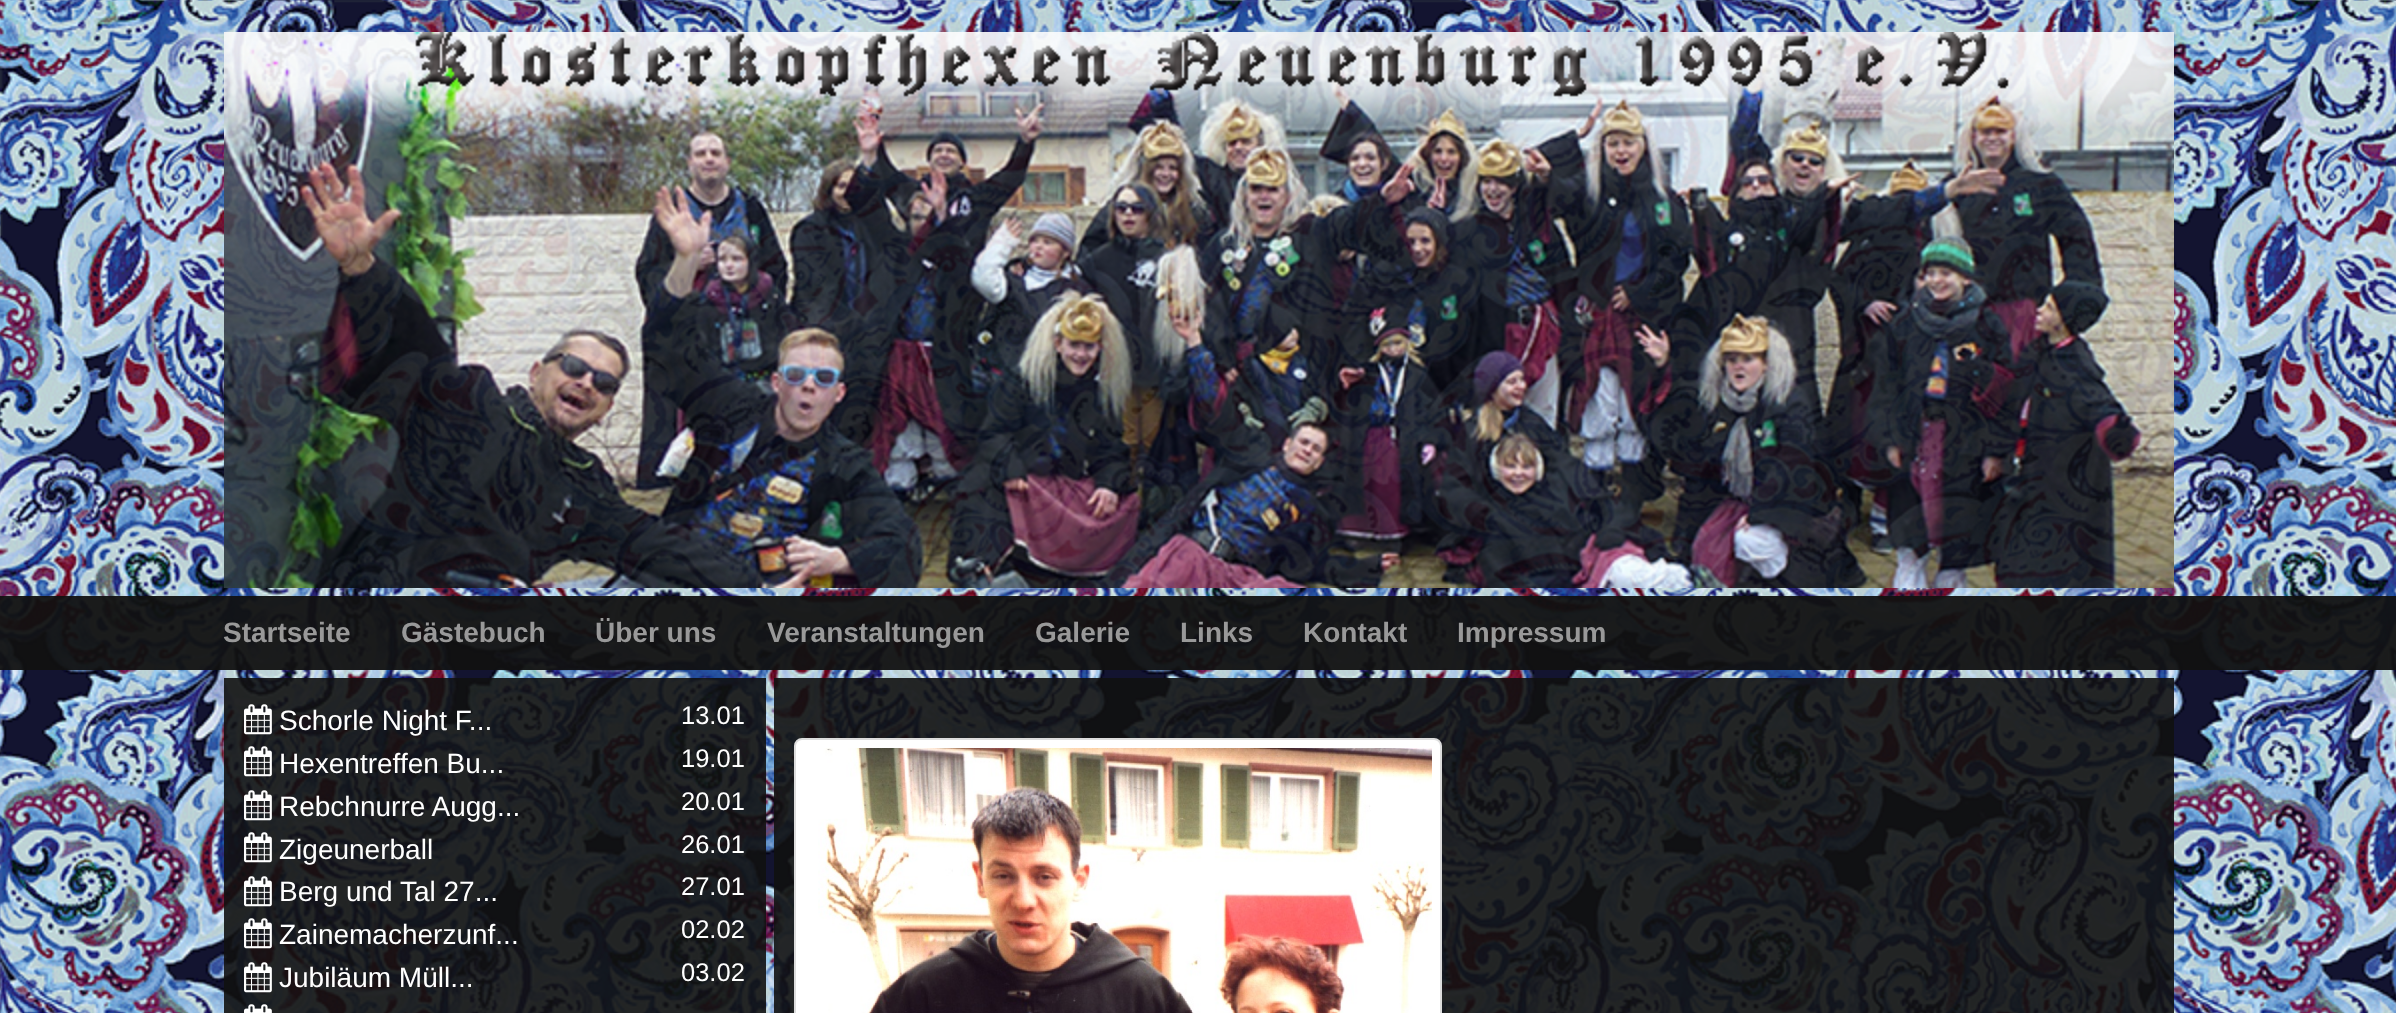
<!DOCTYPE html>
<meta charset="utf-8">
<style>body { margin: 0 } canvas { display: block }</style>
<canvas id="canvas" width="2396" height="1013"></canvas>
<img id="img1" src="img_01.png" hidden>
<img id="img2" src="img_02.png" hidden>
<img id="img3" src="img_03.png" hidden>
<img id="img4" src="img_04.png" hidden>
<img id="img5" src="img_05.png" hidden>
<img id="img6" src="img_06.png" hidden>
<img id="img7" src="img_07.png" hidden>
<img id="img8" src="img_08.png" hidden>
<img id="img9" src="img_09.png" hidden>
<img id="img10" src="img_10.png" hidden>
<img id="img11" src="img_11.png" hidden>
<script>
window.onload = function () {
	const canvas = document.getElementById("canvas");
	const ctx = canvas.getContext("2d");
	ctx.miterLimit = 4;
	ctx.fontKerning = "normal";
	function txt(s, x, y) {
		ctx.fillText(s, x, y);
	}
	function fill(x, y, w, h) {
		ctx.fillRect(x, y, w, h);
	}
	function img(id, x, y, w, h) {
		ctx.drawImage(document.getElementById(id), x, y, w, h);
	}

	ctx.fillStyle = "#FFFFFF";
	fill(0, 0, 2396, 1013);
	img("img1", 0, 0, 2396, 1013);
	img("img2", 224, 32, 1950, 556);
	ctx.fillStyle = "rgba(17, 17, 17, 0.95)";
	fill(0, 596, 2396, 74);
	ctx.fillStyle = "rgba(17, 17, 17, 0.9)";
	fill(224, 678, 542, 335);
	img("img3", 244, 704, 28, 31);
	img("img4", 244, 746, 28, 31);
	img("img5", 244, 790, 28, 31);
	img("img6", 244, 832, 28, 31);
	img("img7", 244, 876, 28, 31);
	img("img8", 244, 918, 28, 31);
	img("img9", 244, 962, 28, 31);
	img("img10", 244, 1004, 28, 9);
	fill(774, 678, 1400, 335);
	ctx.fillStyle = "#FFFFFF";
	ctx.beginPath();
	ctx.roundRect(795, 739, 646, 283, 7);
	ctx.fill();
	ctx.strokeStyle = "#DDDDDD";
	ctx.lineWidth = 2;
	ctx.stroke();
	img("img11", 818, 748, 614, 265);
	ctx.font = "bold 28px Liberation Sans";
	ctx.fillStyle = "#999999";
	txt("Startseite", 223, 642);
	txt("Gästebuch", 401, 642);
	txt("Über uns", 595, 642);
	txt("Veranstaltungen", 767, 642);
	txt("Galerie", 1035, 642);
	txt("Links", 1180, 642);
	txt("Kontakt", 1303, 642);
	txt("Impressum", 1457, 642);
	ctx.font = "28px Liberation Sans";
	ctx.fillStyle = "#FFFFFF";
	txt("Schorle Night F...", 279, 730);
	ctx.font = "25.5px Liberation Sans";
	txt("13.01", 681, 724);
	ctx.font = "28px Liberation Sans";
	txt("Hexentreffen Bu...", 279, 773);
	ctx.font = "25.5px Liberation Sans";
	txt("19.01", 681, 767);
	ctx.font = "28px Liberation Sans";
	txt("Rebchnurre Augg...", 279, 816);
	ctx.font = "25.5px Liberation Sans";
	txt("20.01", 681, 810);
	ctx.font = "28px Liberation Sans";
	txt("Zigeunerball", 279, 859);
	ctx.font = "25.5px Liberation Sans";
	txt("26.01", 681, 853);
	ctx.font = "28px Liberation Sans";
	txt("Berg und Tal 27...", 279, 901);
	ctx.font = "25.5px Liberation Sans";
	txt("27.01", 681, 895);
	ctx.font = "28px Liberation Sans";
	txt("Zainemacherzunf...", 279, 944);
	ctx.font = "25.5px Liberation Sans";
	txt("02.02", 681, 938);
	ctx.font = "28px Liberation Sans";
	txt("Jubiläum Müll...", 279, 987);
	ctx.font = "25.5px Liberation Sans";
	txt("03.02", 681, 981);
};
</script>
